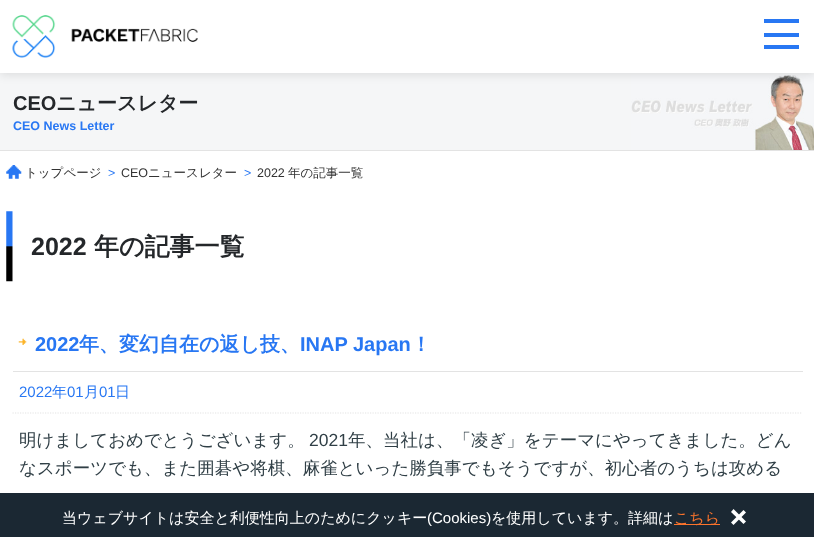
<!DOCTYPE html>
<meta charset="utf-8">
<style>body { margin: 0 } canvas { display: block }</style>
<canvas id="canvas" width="814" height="537"></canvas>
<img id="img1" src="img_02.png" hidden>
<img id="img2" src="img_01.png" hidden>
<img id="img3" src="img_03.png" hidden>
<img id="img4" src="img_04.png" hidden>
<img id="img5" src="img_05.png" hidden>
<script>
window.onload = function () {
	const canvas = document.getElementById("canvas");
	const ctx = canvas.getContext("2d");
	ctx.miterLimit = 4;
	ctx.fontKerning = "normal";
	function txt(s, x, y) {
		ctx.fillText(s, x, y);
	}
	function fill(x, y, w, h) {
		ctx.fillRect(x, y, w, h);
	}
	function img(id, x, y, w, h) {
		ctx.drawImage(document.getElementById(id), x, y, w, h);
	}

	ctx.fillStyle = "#FFFFFF";
	fill(0, 0, 814, 537);
	ctx.fillStyle = "#F5F6F7";
	fill(0, 73, 814, 77);
	img("img1", 631, 75, 183, 75);
	ctx.fillStyle = "rgba(0, 0, 0, 0.1)";
	ctx.filter = "blur(5px)";
	ctx.beginPath();
	ctx.rect(0, 3, 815, 72);
	ctx.fill();
	ctx.filter = "none";
	ctx.fillStyle = "#FFFFFF";
	fill(0, 0, 814, 73);
	img("img2", 12, 15, 186, 43);
	ctx.fillStyle = "#2877F3";
	fill(764, 33, 35, 4);
	fill(764, 19, 35, 4);
	fill(764, 45, 35, 4);
	ctx.fillStyle = "#E3E3E3";
	fill(0, 150, 814, 1);
	img("img3", 6, 165, 16, 14);
	img("img4", 6, 211, 7, 71);
	img("img5", 18, 338, 9, 7);
	fill(13, 371, 790, 1);
	ctx.beginPath();
	ctx.moveTo(12.5, 413);
	ctx.lineTo(802.5, 413);
	ctx.strokeStyle = "#E3E3E3";
	ctx.lineWidth = 1.2;
	ctx.setLineDash([1.25, 1.25]);
	ctx.stroke();
	ctx.fillStyle = "#1B2833";
	fill(0, 493, 814, 44);
	ctx.fillStyle = "#FC742C";
	fill(674, 524, 46, 1);
	ctx.fillStyle = "#FFFFFF";
	ctx.beginPath();
	ctx.moveTo(743.5, 510);
	ctx.lineTo(746, 512.5);
	ctx.lineTo(733.5, 525);
	ctx.lineTo(731, 522.5);
	ctx.closePath();
	ctx.fill();
	ctx.beginPath();
	ctx.moveTo(733.5, 509);
	ctx.lineTo(746, 521.5);
	ctx.lineTo(743.5, 524);
	ctx.lineTo(731, 512);
	ctx.closePath();
	ctx.fill();
	ctx.font = "bold 20px Liberation Sans";
	ctx.fillStyle = "#24272A";
	txt("CEO", 13, 110);
	ctx.font = "bold 20px WenQuanYi Zen Hei";
	txt("ニュースレター", 56, 110);
	ctx.font = "bold 12.5px Liberation Sans";
	ctx.fillStyle = "#2877F3";
	txt("CEO News Letter", 13, 130);
	ctx.font = "500 12.5px WenQuanYi Zen Hei";
	ctx.fillStyle = "#333333";
	txt("トップページ", 25, 177);
	ctx.font = "12.5px Liberation Sans";
	ctx.fillStyle = "#2877F3";
	txt(">", 108, 177);
	ctx.fillStyle = "#333333";
	txt("CEO", 121, 177);
	ctx.font = "500 12.5px WenQuanYi Zen Hei";
	txt("ニュースレター", 148, 177);
	ctx.font = "12.5px Liberation Sans";
	ctx.fillStyle = "#2877F3";
	txt(">", 244, 177);
	ctx.fillStyle = "#333333";
	txt("2022", 257, 177);
	ctx.font = "500 12.5px WenQuanYi Zen Hei";
	txt("年の記事一覧", 288, 177);
	ctx.font = "bold 25px Liberation Sans";
	ctx.fillStyle = "#24272A";
	txt("2022", 31, 255);
	ctx.font = "bold 25px WenQuanYi Zen Hei";
	txt("年の記事一覧", 94, 255);
	ctx.font = "bold 20px Liberation Sans";
	ctx.fillStyle = "#2877F3";
	txt("2022", 35, 351);
	ctx.font = "bold 20px WenQuanYi Zen Hei";
	txt("年、変幻自在の返し技、", 79, 351);
	ctx.font = "bold 20px Liberation Sans";
	txt("INAP Japan", 300, 351);
	ctx.font = "bold 20px WenQuanYi Zen Hei";
	txt("！", 411, 351);
	ctx.font = "15px Liberation Sans";
	txt("2022", 19, 397);
	ctx.font = "500 15px WenQuanYi Zen Hei";
	txt("年", 52, 397);
	ctx.font = "15px Liberation Sans";
	txt("01", 67, 397);
	ctx.font = "500 15px WenQuanYi Zen Hei";
	txt("月", 84, 397);
	ctx.font = "15px Liberation Sans";
	txt("01", 99, 397);
	ctx.font = "500 15px WenQuanYi Zen Hei";
	txt("日", 115, 397);
	ctx.font = "500 17.5px WenQuanYi Zen Hei";
	ctx.fillStyle = "#303F46";
	txt("明けましておめでとうございます。", 19, 446);
	ctx.font = "17.5px Liberation Sans";
	txt("2021", 309, 446);
	ctx.font = "500 17.5px WenQuanYi Zen Hei";
	txt("年、当社は、「凌ぎ」をテーマにやってきました。どん", 348, 446);
	txt("なスポーツでも、また囲碁や将棋、麻雀といった勝負事でもそうですが、初心者のうちは攻める", 19, 474);
	ctx.font = "500 15px WenQuanYi Zen Hei";
	ctx.fillStyle = "#FFFFFF";
	txt("当ウェブサイトは安全と利便性向上のためにクッキー", 62, 523);
	ctx.font = "15px Liberation Sans";
	txt("(Cookies)", 427, 523);
	ctx.font = "500 15px WenQuanYi Zen Hei";
	txt("を使用しています。詳細は", 491, 523);
	ctx.fillStyle = "#FC742C";
	txt("こちら", 674, 523);
};
</script>
